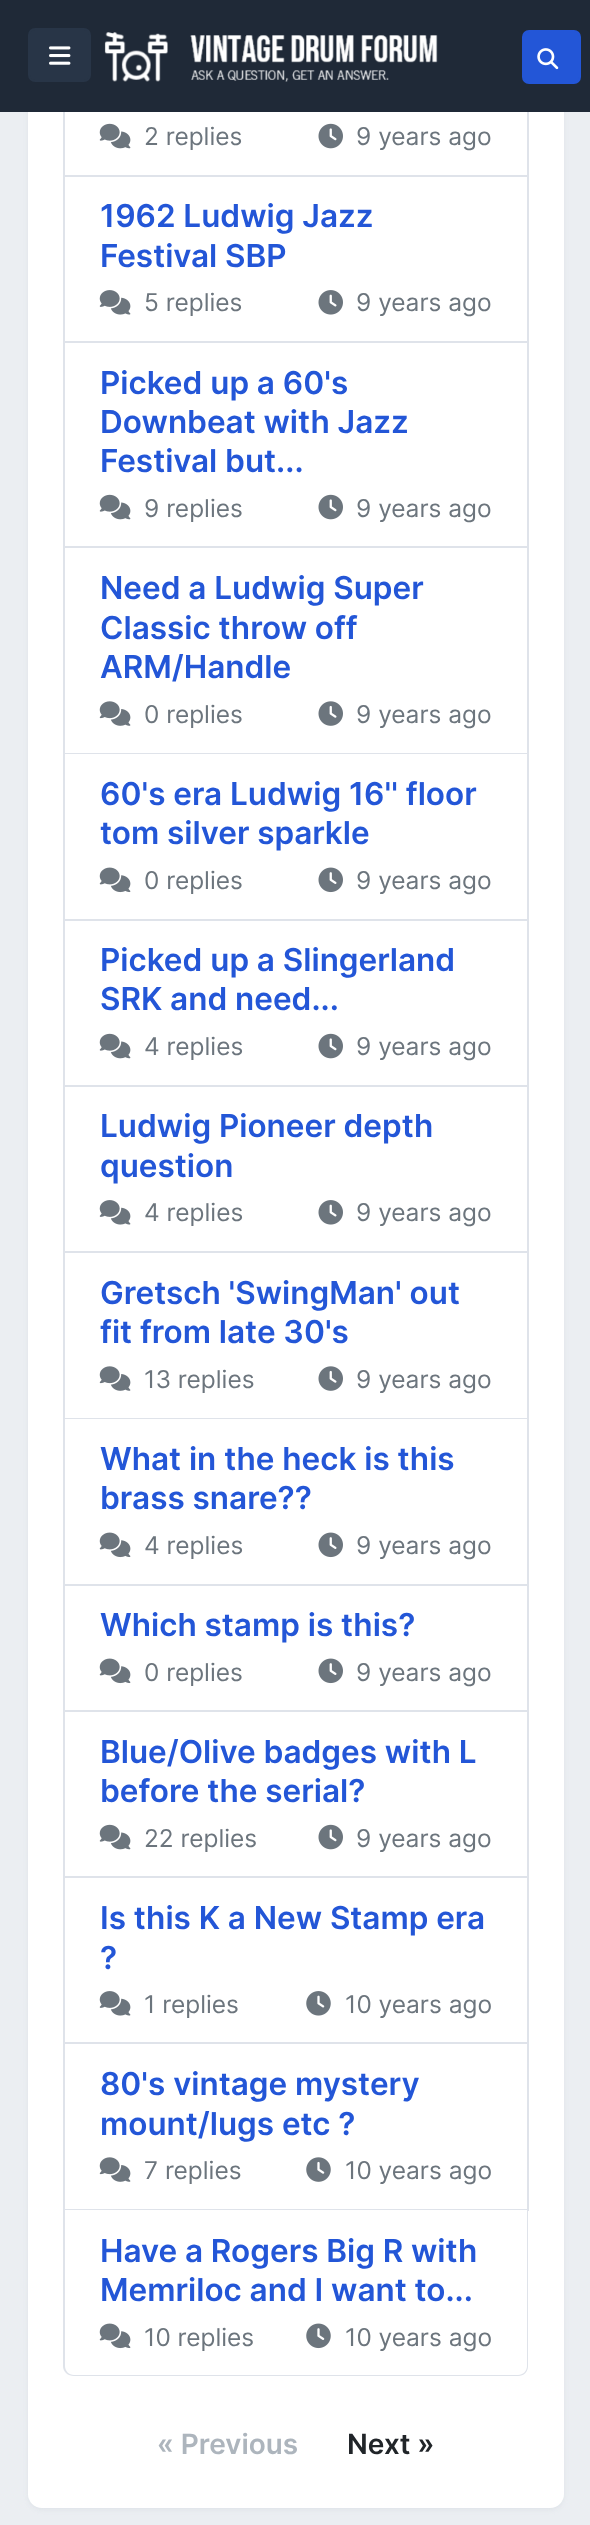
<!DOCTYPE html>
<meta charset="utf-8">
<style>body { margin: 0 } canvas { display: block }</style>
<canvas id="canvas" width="590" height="2525"></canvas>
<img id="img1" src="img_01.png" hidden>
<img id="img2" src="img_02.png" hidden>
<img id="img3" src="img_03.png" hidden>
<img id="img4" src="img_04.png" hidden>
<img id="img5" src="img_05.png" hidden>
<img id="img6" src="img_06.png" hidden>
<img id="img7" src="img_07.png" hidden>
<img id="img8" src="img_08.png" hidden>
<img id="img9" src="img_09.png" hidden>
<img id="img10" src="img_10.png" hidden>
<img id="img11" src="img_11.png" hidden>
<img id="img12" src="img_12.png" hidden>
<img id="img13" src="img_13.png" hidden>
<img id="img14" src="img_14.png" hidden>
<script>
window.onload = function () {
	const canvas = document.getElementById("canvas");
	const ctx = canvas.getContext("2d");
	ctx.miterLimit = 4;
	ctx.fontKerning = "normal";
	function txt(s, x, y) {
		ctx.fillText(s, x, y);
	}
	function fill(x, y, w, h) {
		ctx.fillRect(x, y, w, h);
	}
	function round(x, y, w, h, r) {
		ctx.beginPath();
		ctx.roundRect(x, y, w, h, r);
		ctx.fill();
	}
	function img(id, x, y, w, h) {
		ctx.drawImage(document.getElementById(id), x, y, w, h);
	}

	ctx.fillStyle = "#EBEEF2";
	fill(0, 0, 590, 2525);
	ctx.fillStyle = "rgba(214, 219, 226, 0.5)";
	ctx.filter = "blur(2px)";
	ctx.beginPath();
	ctx.roundRect(28, -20, 536, 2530, 14);
	ctx.fill();
	ctx.filter = "none";
	ctx.fillStyle = "#FFFFFF";
	round(28, -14, 536, 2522, 14);
	ctx.fillStyle = "#1F2937";
	fill(0, 0, 590, 112);
	ctx.fillStyle = "#283547";
	ctx.beginPath();
	ctx.roundRect(29, 29, 61, 52, 6);
	ctx.fill();
	ctx.strokeStyle = "#283547";
	ctx.lineWidth = 2;
	ctx.stroke();
	img("img1", 49, 46, 22, 19);
	img("img2", 104, 32, 334, 50);
	ctx.fillStyle = "#2356D7";
	ctx.beginPath();
	ctx.roundRect(523, 31, 57, 52, 6);
	ctx.fill();
	ctx.strokeStyle = "#2356D7";
	ctx.stroke();
	img("img3", 537, 48, 22, 22);
	ctx.fillStyle = "#DFE3EA";
	fill(527, 112, 2, 2098);
	fill(63, 175, 466, 2);
	fill(63, 112, 2, 65);
	img("img4", 99, 123, 32, 26);
	img("img5", 318, 123, 25, 26);
	fill(63, 341, 466, 2);
	fill(63, 177, 2, 166);
	img("img6", 99, 290, 32, 25);
	img("img7", 318, 290, 25, 25);
	fill(63, 546, 466, 2);
	fill(63, 343, 2, 205);
	img("img4", 99, 494, 32, 26);
	img("img5", 318, 494, 25, 26);
	fill(63, 753, 466, 1);
	fill(63, 548, 2, 206);
	img("img8", 99, 701, 32, 25);
	img("img9", 318, 701, 25, 25);
	fill(63, 919, 466, 2);
	fill(63, 754, 2, 167);
	img("img10", 99, 867, 32, 26);
	img("img11", 318, 867, 25, 26);
	fill(63, 1085, 466, 2);
	fill(63, 921, 2, 166);
	img("img4", 99, 1033, 32, 26);
	img("img5", 318, 1033, 25, 26);
	fill(63, 1251, 466, 2);
	fill(63, 1087, 2, 166);
	img("img6", 99, 1200, 32, 25);
	img("img7", 318, 1200, 25, 25);
	fill(63, 1418, 466, 1);
	fill(63, 1253, 2, 166);
	img("img8", 99, 1366, 32, 25);
	img("img9", 318, 1366, 25, 25);
	fill(63, 1584, 466, 2);
	fill(63, 1419, 2, 167);
	img("img10", 99, 1532, 32, 26);
	img("img11", 318, 1532, 25, 26);
	fill(63, 1710, 466, 2);
	fill(63, 1586, 2, 126);
	img("img10", 99, 1658, 32, 26);
	img("img11", 318, 1658, 25, 26);
	fill(63, 1876, 466, 2);
	fill(63, 1712, 2, 166);
	img("img4", 99, 1824, 32, 26);
	img("img5", 318, 1824, 25, 26);
	fill(63, 2042, 466, 2);
	fill(63, 1878, 2, 166);
	img("img6", 99, 1991, 32, 25);
	img("img12", 306, 1991, 25, 25);
	fill(63, 2209, 466, 2);
	fill(63, 2044, 2, 166);
	img("img8", 99, 2157, 32, 25);
	img("img13", 306, 2157, 25, 25);
	ctx.fillStyle = "#FFFFFF";
	ctx.beginPath();
	ctx.roundRect(65, 2210, 462, 165, [0, 0, 9, 9]);
	ctx.fill();
	ctx.fillStyle = "#DFE3EA";
	ctx.beginPath();
	ctx.moveTo(63, 2210);
	ctx.lineTo(528, 2210);
	ctx.lineTo(528, 2366);
	ctx.bezierCurveTo(528, 2372, 524, 2376, 518, 2376);
	ctx.lineTo(74, 2376);
	ctx.bezierCurveTo(68, 2376, 63, 2372, 63, 2366);
	ctx.closePath();
	ctx.moveTo(65, 2210);
	ctx.lineTo(527, 2210);
	ctx.lineTo(527, 2366);
	ctx.bezierCurveTo(527, 2371, 523, 2375, 518, 2375);
	ctx.lineTo(74, 2375);
	ctx.bezierCurveTo(69, 2375, 65, 2371, 65, 2366);
	ctx.closePath();
	ctx.fill("evenodd");
	img("img10", 99, 2323, 32, 26);
	img("img14", 306, 2323, 25, 26);
	ctx.font = "24.5px Inter";
	ctx.fillStyle = "#6C757D";
	txt("2 replies", 144, 145);
	txt("9 years ago", 356, 145);
	ctx.font = "600 31.5px Inter";
	ctx.fillStyle = "#2356D7";
	txt("1962 Ludwig Jazz", 100, 227);
	txt("Festival SBP", 100, 267);
	ctx.font = "24.5px Inter";
	ctx.fillStyle = "#6C757D";
	txt("5 replies", 144, 311);
	txt("9 years ago", 356, 311);
	ctx.font = "600 31.5px Inter";
	ctx.fillStyle = "#2356D7";
	txt("Picked up a 60's", 100, 394);
	txt("Downbeat with Jazz", 100, 433);
	txt("Festival but...", 100, 472);
	ctx.font = "24.5px Inter";
	ctx.fillStyle = "#6C757D";
	txt("9 replies", 144, 517);
	txt("9 years ago", 356, 517);
	ctx.font = "600 31.5px Inter";
	ctx.fillStyle = "#2356D7";
	txt("Need a Ludwig Super", 100, 599);
	txt("Classic throw off", 100, 639);
	txt("ARM/Handle", 100, 678);
	ctx.font = "24.5px Inter";
	ctx.fillStyle = "#6C757D";
	txt("0 replies", 144, 723);
	txt("9 years ago", 356, 723);
	ctx.font = "600 31.5px Inter";
	ctx.fillStyle = "#2356D7";
	txt("60's era Ludwig 16'' floor", 100, 805);
	txt("tom silver sparkle", 100, 844);
	ctx.font = "24.5px Inter";
	ctx.fillStyle = "#6C757D";
	txt("0 replies", 144, 889);
	txt("9 years ago", 356, 889);
	ctx.font = "600 31.5px Inter";
	ctx.fillStyle = "#2356D7";
	txt("Picked up a Slingerland", 100, 971);
	txt("SRK and need...", 100, 1010);
	ctx.font = "24.5px Inter";
	ctx.fillStyle = "#6C757D";
	txt("4 replies", 144, 1055);
	txt("9 years ago", 356, 1055);
	ctx.font = "600 31.5px Inter";
	ctx.fillStyle = "#2356D7";
	txt("Ludwig Pioneer depth", 100, 1137);
	txt("question", 100, 1177);
	ctx.font = "24.5px Inter";
	ctx.fillStyle = "#6C757D";
	txt("4 replies", 144, 1221);
	txt("9 years ago", 356, 1221);
	ctx.font = "600 31.5px Inter";
	ctx.fillStyle = "#2356D7";
	txt("Gretsch 'SwingMan' out", 100, 1304);
	txt("fit from late 30's", 100, 1343);
	ctx.font = "24.5px Inter";
	ctx.fillStyle = "#6C757D";
	txt("13 replies", 144, 1388);
	txt("9 years ago", 356, 1388);
	ctx.font = "600 31.5px Inter";
	ctx.fillStyle = "#2356D7";
	txt("What in the heck is this", 100, 1470);
	txt("brass snare??", 100, 1509);
	ctx.font = "24.5px Inter";
	ctx.fillStyle = "#6C757D";
	txt("4 replies", 144, 1554);
	txt("9 years ago", 356, 1554);
	ctx.font = "600 31.5px Inter";
	ctx.fillStyle = "#2356D7";
	txt("Which stamp is this?", 100, 1636);
	ctx.font = "24.5px Inter";
	ctx.fillStyle = "#6C757D";
	txt("0 replies", 144, 1681);
	txt("9 years ago", 356, 1681);
	ctx.font = "600 31.5px Inter";
	ctx.fillStyle = "#2356D7";
	txt("Blue/Olive badges with L", 100, 1763);
	txt("before the serial?", 100, 1802);
	ctx.font = "24.5px Inter";
	ctx.fillStyle = "#6C757D";
	txt("22 replies", 144, 1847);
	txt("9 years ago", 356, 1847);
	ctx.font = "600 31.5px Inter";
	ctx.fillStyle = "#2356D7";
	txt("Is this K a New Stamp era", 100, 1929);
	txt("?", 100, 1969);
	ctx.font = "24.5px Inter";
	ctx.fillStyle = "#6C757D";
	txt("1 replies", 144, 2013);
	txt("10 years ago", 345, 2013);
	ctx.font = "600 31.5px Inter";
	ctx.fillStyle = "#2356D7";
	txt("80's vintage mystery", 100, 2095);
	txt("mount/lugs etc ?", 100, 2135);
	ctx.font = "24.5px Inter";
	ctx.fillStyle = "#6C757D";
	txt("7 replies", 144, 2179);
	txt("10 years ago", 345, 2179);
	ctx.font = "600 31.5px Inter";
	ctx.fillStyle = "#2356D7";
	txt("Have a Rogers Big R with", 100, 2262);
	txt("Memriloc and I want to...", 100, 2301);
	ctx.font = "24.5px Inter";
	ctx.fillStyle = "#6C757D";
	txt("10 replies", 144, 2346);
	txt("10 years ago", 345, 2346);
	ctx.font = "600 28px Inter";
	ctx.fillStyle = "#ADB5BD";
	txt("« Previous", 157, 2454);
	ctx.fillStyle = "#212529";
	txt("Next »", 347, 2454);
};
</script>
